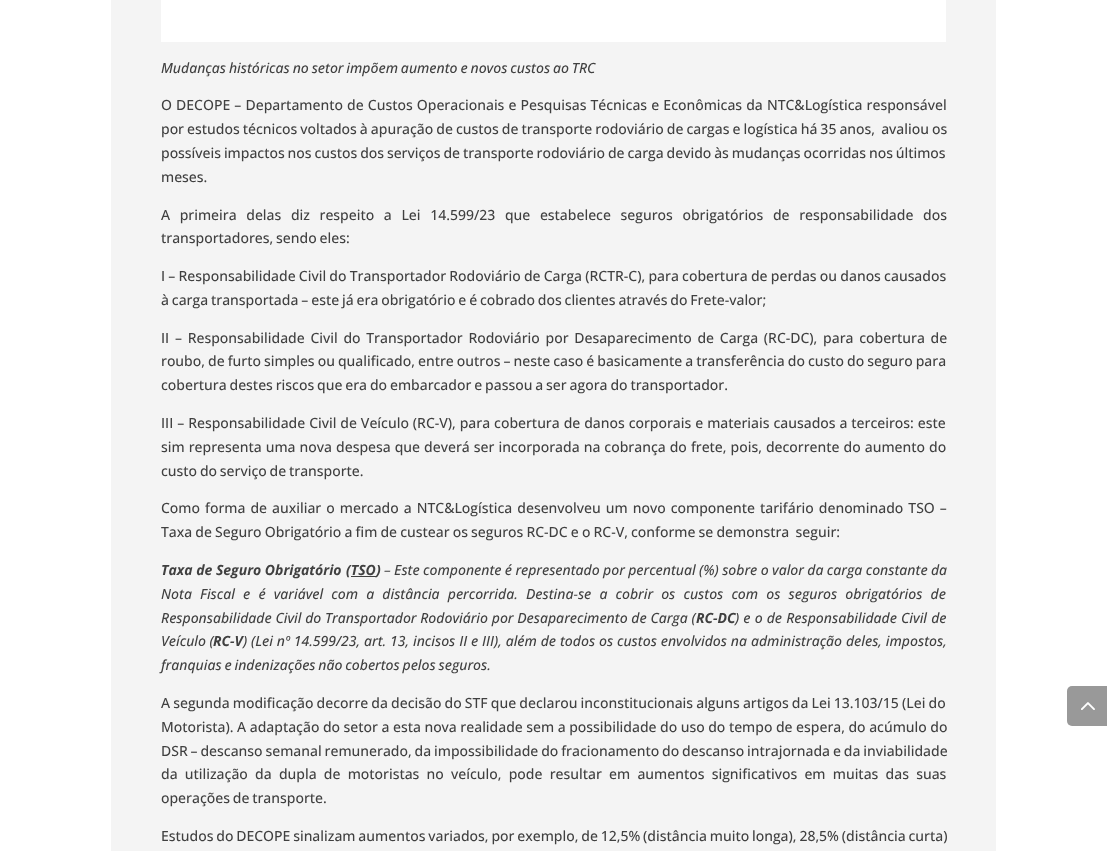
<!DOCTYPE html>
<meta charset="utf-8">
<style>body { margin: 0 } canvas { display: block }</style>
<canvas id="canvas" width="1107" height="851"></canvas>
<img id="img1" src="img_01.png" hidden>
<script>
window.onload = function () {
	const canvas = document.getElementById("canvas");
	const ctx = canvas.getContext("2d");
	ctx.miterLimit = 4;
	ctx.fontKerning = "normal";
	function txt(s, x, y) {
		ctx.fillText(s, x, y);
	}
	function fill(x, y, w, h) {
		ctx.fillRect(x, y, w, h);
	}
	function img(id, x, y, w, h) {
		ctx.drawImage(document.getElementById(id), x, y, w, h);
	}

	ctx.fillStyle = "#FFFFFF";
	fill(0, 0, 1107, 851);
	ctx.fillStyle = "#F4F4F4";
	fill(111, 0, 885, 851);
	ctx.fillStyle = "#FFFFFF";
	fill(161, 0, 785, 42);
	ctx.fillStyle = "#404040";
	fill(351, 576, 25, 1);
	ctx.fillStyle = "#999999";
	ctx.beginPath();
	ctx.roundRect(1067, 686, 40, 40, [5, 0, 0, 5]);
	ctx.fill();
	img("img1", 1081, 702, 14, 8);
	ctx.wordSpacing = "-0.75px";
	ctx.font = "italic 500 14px Open Sans";
	ctx.fillStyle = "#404040";
	txt("Mudanças históricas no setor impõem aumento e novos custos ao TRC", 161, 73);
	ctx.wordSpacing = "0.5px";
	ctx.font = "500 14px Open Sans";
	txt("O DECOPE – Departamento de Custos Operacionais e Pesquisas Técnicas e Econômicas da NTC&Logística responsável", 161, 110);
	ctx.wordSpacing = "-0.6px";
	txt("por estudos técnicos voltados à apuração de custos de transporte rodoviário de cargas e logística há 35 anos,  avaliou os", 161, 134);
	ctx.wordSpacing = "-0.75px";
	txt("possíveis impactos nos custos dos serviços de transporte rodoviário de carga devido às mudanças ocorridas nos últimos", 161, 158);
	ctx.wordSpacing = "0px";
	txt("meses.", 161, 182);
	ctx.wordSpacing = "6px";
	txt("A primeira delas diz respeito a Lei 14.599/23 que estabelece seguros obrigatórios de responsabilidade dos", 161, 220);
	ctx.wordSpacing = "-0.8px";
	txt("transportadores, sendo eles:", 161, 243);
	ctx.wordSpacing = "-0.4px";
	txt("I – Responsabilidade Civil do Transportador Rodoviário de Carga (RCTR-C), para cobertura de perdas ou danos causados", 161, 281);
	ctx.wordSpacing = "-0.75px";
	txt("à carga transportada – este já era obrigatório e é cobrado dos clientes através do Frete-valor;", 161, 305);
	ctx.wordSpacing = "2.1px";
	txt("II – Responsabilidade Civil do Transportador Rodoviário por Desaparecimento de Carga (RC-DC), para cobertura de", 161, 343);
	ctx.wordSpacing = "-0.6px";
	txt("roubo, de furto simples ou qualificado, entre outros – neste caso é basicamente a transferência do custo do seguro para", 161, 366);
	ctx.wordSpacing = "-0.75px";
	txt("cobertura destes riscos que era do embarcador e passou a ser agora do transportador.", 161, 390);
	ctx.wordSpacing = "0.3px";
	txt("III – Responsabilidade Civil de Veículo (RC-V), para cobertura de danos corporais e materiais causados a terceiros: este", 161, 428);
	ctx.wordSpacing = "0.4px";
	txt("sim representa uma nova despesa que deverá ser incorporada na cobrança do frete, pois, decorrente do aumento do", 161, 452);
	ctx.wordSpacing = "-0.8px";
	txt("custo do serviço de transporte.", 161, 476);
	ctx.wordSpacing = "1.4px";
	txt("Como forma de auxiliar o mercado a NTC&Logística desenvolveu um novo componente tarifário denominado TSO –", 161, 513);
	ctx.wordSpacing = "-0.5px";
	txt("Taxa de Seguro Obrigatório a fim de custear os seguros RC-DC e o RC-V, conforme se demonstra  seguir:", 161, 537);
	ctx.wordSpacing = "0px";
	ctx.font = "italic bold 14px Open Sans";
	txt("Taxa de Seguro Obrigatório", 161, 575);
	txt("(TSO", 346, 575);
	txt(")", 376, 575);
	ctx.wordSpacing = "-0.25px";
	ctx.font = "italic 500 14px Open Sans";
	txt("– Este componente é representado por percentual (%) sobre o valor da carga constante da", 384, 575);
	ctx.wordSpacing = "4.5px";
	txt("Nota Fiscal e é variável com a distância percorrida. Destina-se a cobrir os custos com os seguros obrigatórios de", 161, 599);
	ctx.wordSpacing = "0.1px";
	txt("Responsabilidade Civil do Transportador Rodoviário por Desaparecimento de Carga (", 161, 623);
	ctx.wordSpacing = "0px";
	ctx.font = "italic bold 14px Open Sans";
	txt("RC-DC", 696, 623);
	ctx.wordSpacing = "0.5px";
	ctx.font = "italic 500 14px Open Sans";
	txt(") e o de Responsabilidade Civil de", 735, 623);
	ctx.wordSpacing = "0px";
	txt("Veículo (", 161, 646);
	ctx.font = "italic bold 14px Open Sans";
	txt("RC-V", 213, 646);
	ctx.wordSpacing = "0.25px";
	ctx.font = "italic 500 14px Open Sans";
	txt(") (Lei nº 14.599/23, art. 13, incisos II e III), além de todos os custos envolvidos na administração deles, impostos,", 243, 646);
	ctx.wordSpacing = "-0.8px";
	txt("franquias e indenizações não cobertos pelos seguros.", 161, 670);
	ctx.wordSpacing = "-0.5px";
	ctx.font = "500 14px Open Sans";
	txt("A segunda modificação decorre da decisão do STF que declarou inconstitucionais alguns artigos da Lei 13.103/15 (Lei do", 161, 708);
	ctx.wordSpacing = "-0.1px";
	txt("Motorista). A adaptação do setor a esta nova realidade sem a possibilidade do uso do tempo de espera, do acúmulo do", 161, 732);
	ctx.wordSpacing = "-0.75px";
	txt("DSR – descanso semanal remunerado, da impossibilidade do fracionamento do descanso intrajornada e da inviabilidade", 161, 756);
	ctx.wordSpacing = "3.6px";
	txt("da utilização da dupla de motoristas no veículo, pode resultar em aumentos significativos em muitas das suas", 161, 779);
	ctx.wordSpacing = "-0.8px";
	txt("operações de transporte.", 161, 803);
	txt("Estudos do DECOPE sinalizam aumentos variados, por exemplo, de 12,5% (distância muito longa), 28,5% (distância curta)", 161, 841);
};
</script>
